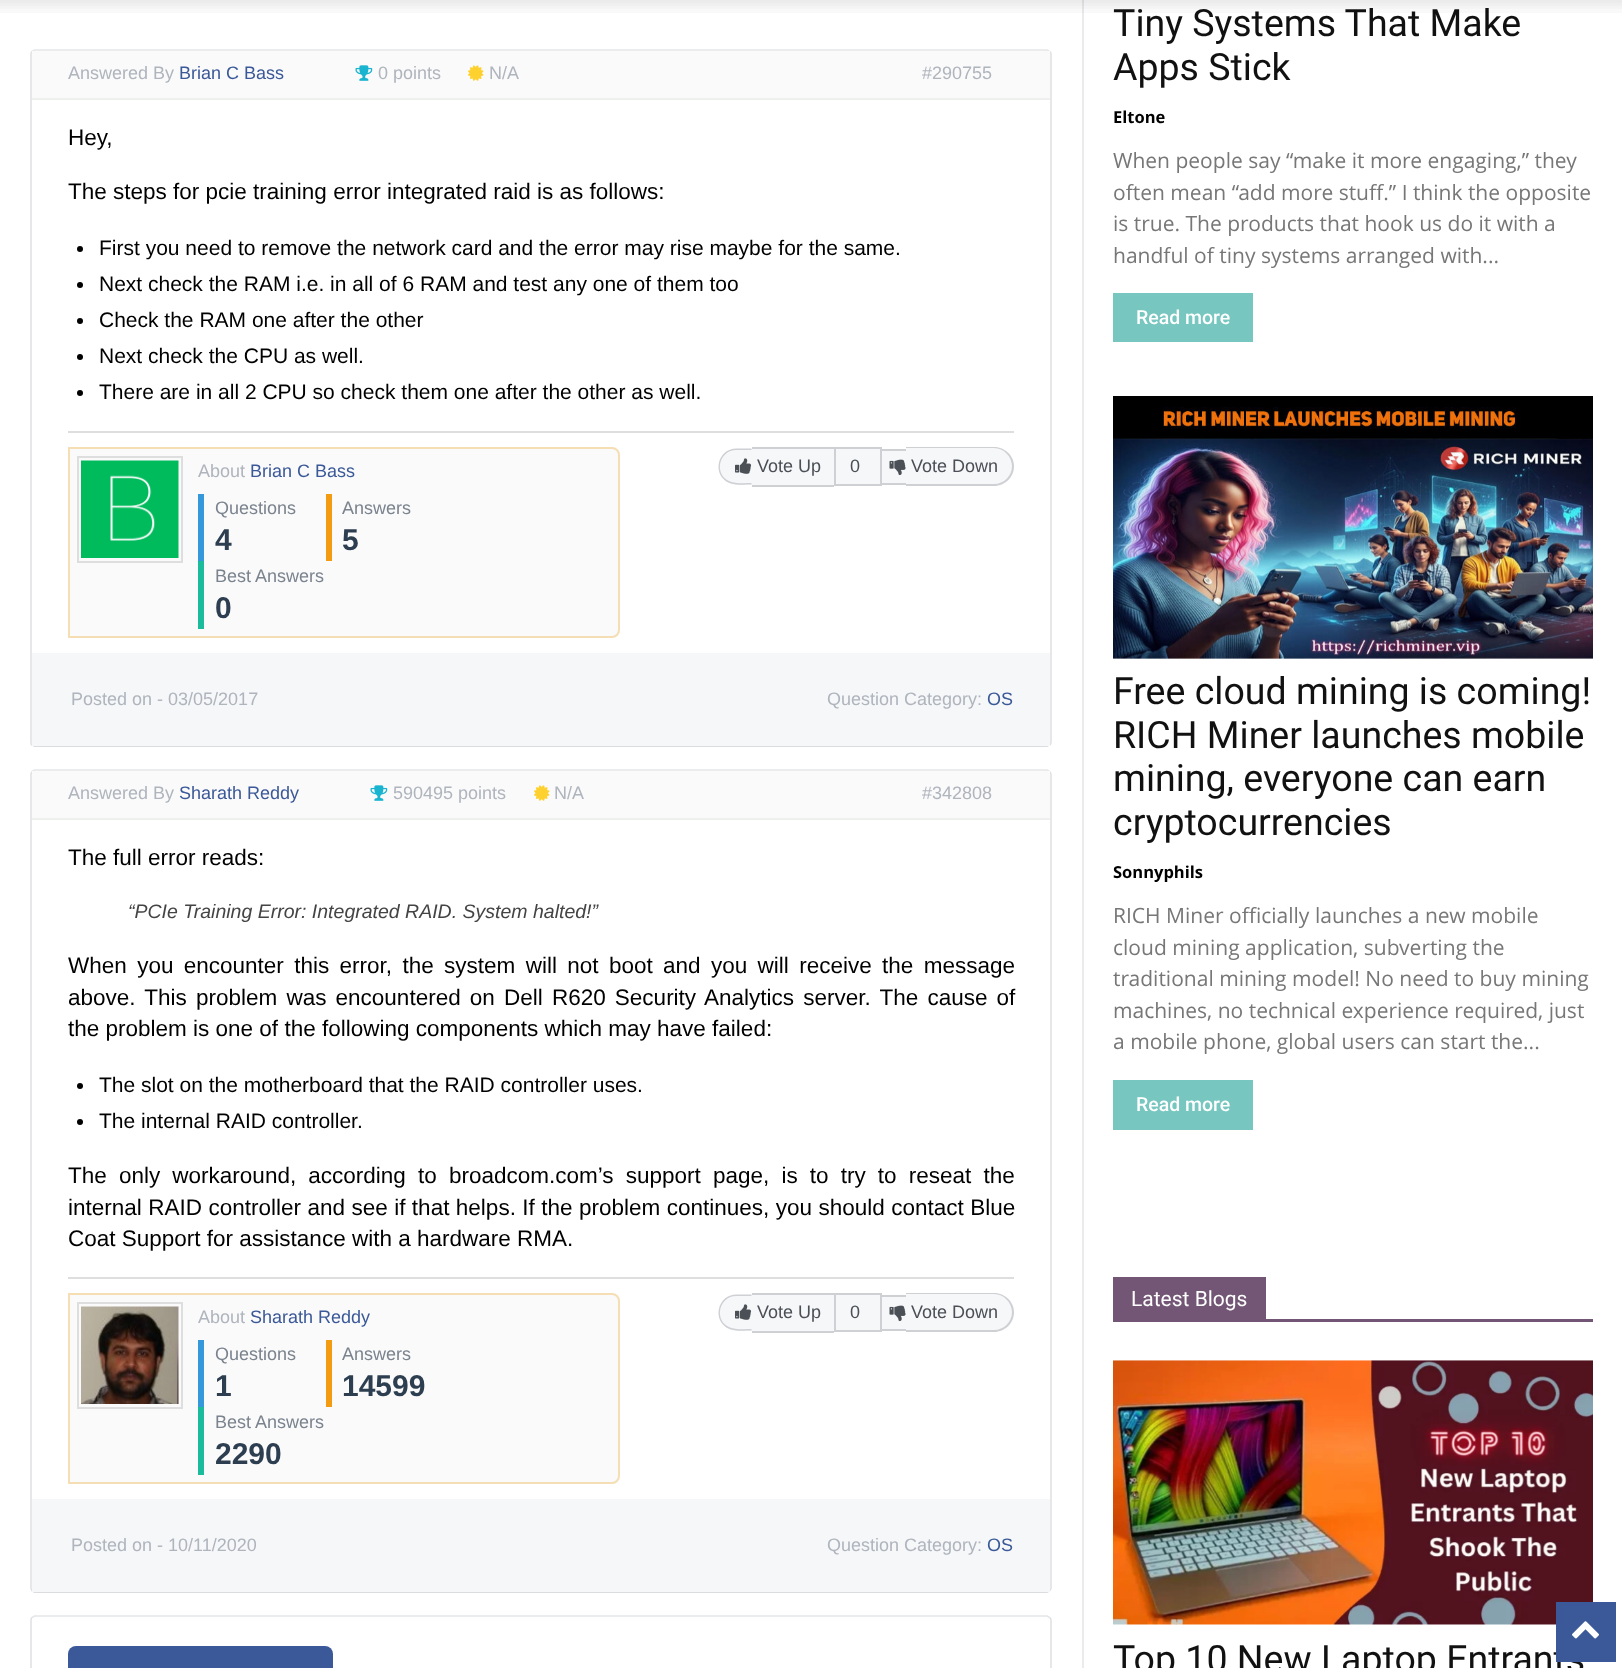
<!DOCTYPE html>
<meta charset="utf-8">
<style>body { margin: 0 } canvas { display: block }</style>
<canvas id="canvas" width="1622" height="1668"></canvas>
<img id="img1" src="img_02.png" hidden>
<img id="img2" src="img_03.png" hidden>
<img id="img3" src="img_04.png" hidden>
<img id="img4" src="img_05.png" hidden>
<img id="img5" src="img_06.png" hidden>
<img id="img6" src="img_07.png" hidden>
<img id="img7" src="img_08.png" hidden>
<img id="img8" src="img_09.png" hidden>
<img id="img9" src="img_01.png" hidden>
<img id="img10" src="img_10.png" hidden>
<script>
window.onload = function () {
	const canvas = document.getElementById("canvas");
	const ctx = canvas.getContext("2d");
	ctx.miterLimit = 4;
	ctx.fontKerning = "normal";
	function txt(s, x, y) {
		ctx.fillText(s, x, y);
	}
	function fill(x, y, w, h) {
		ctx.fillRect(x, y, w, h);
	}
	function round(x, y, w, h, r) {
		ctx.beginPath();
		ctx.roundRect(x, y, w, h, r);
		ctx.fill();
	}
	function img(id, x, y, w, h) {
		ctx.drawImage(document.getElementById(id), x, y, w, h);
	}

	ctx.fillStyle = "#FFFFFF";
	fill(0, 0, 1622, 1668);
	ctx.beginPath();
	ctx.moveTo(32, 51.5);
	ctx.lineTo(34.5, 50);
	ctx.lineTo(1047, 50);
	ctx.lineTo(1049.5, 51.5);
	ctx.strokeStyle = "#E5E6E9";
	ctx.lineWidth = 1.5;
	ctx.stroke();
	ctx.beginPath();
	ctx.moveTo(1049.5, 51.5);
	ctx.bezierCurveTo(1050.5, 52, 1051, 53, 1051, 54);
	ctx.lineTo(1051, 742.5);
	ctx.bezierCurveTo(1051, 743.5, 1050.5, 744.5, 1049.5, 745);
	ctx.strokeStyle = "#DFE0E4";
	ctx.stroke();
	ctx.beginPath();
	ctx.moveTo(1049.5, 745);
	ctx.lineTo(1047, 746);
	ctx.lineTo(34.5, 746);
	ctx.lineTo(32, 745);
	ctx.strokeStyle = "#D0D1D5";
	ctx.stroke();
	ctx.beginPath();
	ctx.moveTo(32, 745);
	ctx.bezierCurveTo(31, 744.5, 31, 743.5, 31, 742.5);
	ctx.lineTo(31, 54);
	ctx.bezierCurveTo(31, 53, 31, 52, 32, 51.5);
	ctx.strokeStyle = "#DFE0E4";
	ctx.stroke();
	ctx.fillStyle = "#FAFAFA";
	fill(32, 51, 1018, 47);
	ctx.fillStyle = "#EEF0EE";
	fill(32, 98, 1018, 2);
	img("img1", 355, 65, 18, 16);
	img("img2", 468, 65, 16, 16);
	ctx.fillStyle = "#DEDEDE";
	fill(68, 431, 946, 2);
	ctx.fillStyle = "#000000";
	ctx.beginPath();
	ctx.arc(80, 249, 3, 0, Math.PI * 2);
	ctx.fill();
	ctx.beginPath();
	ctx.arc(80, 285, 3, 0, Math.PI * 2);
	ctx.fill();
	ctx.beginPath();
	ctx.arc(80, 321, 3, 0, Math.PI * 2);
	ctx.fill();
	ctx.beginPath();
	ctx.arc(80, 357, 3, 0, Math.PI * 2);
	ctx.fill();
	ctx.beginPath();
	ctx.arc(80, 393, 3, 0, Math.PI * 2);
	ctx.fill();
	ctx.fillStyle = "#FAFAFA";
	ctx.beginPath();
	ctx.roundRect(69, 448, 550, 189, [0, 7, 7, 0]);
	ctx.fill();
	ctx.strokeStyle = "#F5DEB3";
	ctx.lineWidth = 2;
	ctx.stroke();
	ctx.strokeStyle = "#DEDEDE";
	ctx.strokeRect(78, 457, 104, 105);
	img("img3", 81, 460, 98, 98);
	ctx.fillStyle = "#3498DB";
	fill(198, 494, 6, 67);
	ctx.fillStyle = "#F39C12";
	fill(326, 494, 6, 67);
	ctx.fillStyle = "#1ABC9C";
	fill(198, 561, 6, 68);
	ctx.fillStyle = "#F6F7F9";
	ctx.beginPath();
	ctx.roundRect(719, 449, 33, 36, [18, 0, 0, 18]);
	ctx.fill();
	ctx.fillStyle = "#CED0D4";
	ctx.beginPath();
	ctx.moveTo(736.5, 448.5);
	ctx.lineTo(751.5, 448.5);
	ctx.lineTo(751.5, 484.5);
	ctx.bezierCurveTo(745, 484.5, 735, 485.5, 729.5, 483);
	ctx.bezierCurveTo(711.5, 475.5, 717, 448.5, 736.5, 448.5);
	ctx.closePath();
	ctx.moveTo(736.5, 450);
	ctx.lineTo(751.5, 450);
	ctx.lineTo(751.5, 483);
	ctx.bezierCurveTo(745.5, 483, 735.5, 484, 730, 481.5);
	ctx.bezierCurveTo(713.5, 475, 718.5, 450, 736.5, 450);
	ctx.closePath();
	ctx.fill("evenodd");
	ctx.fillStyle = "#F6F7F9";
	fill(752, 449, 82, 36);
	ctx.fillStyle = "#CED0D4";
	fill(752, 447, 82, 2);
	fill(752, 485, 82, 2);
	img("img4", 735, 458, 17, 16);
	ctx.fillStyle = "#F6F7F9";
	ctx.beginPath();
	ctx.rect(835, 448, 46, 37);
	ctx.fill();
	ctx.strokeStyle = "#CED0D4";
	ctx.stroke();
	fill(882, 451, 24, 32);
	ctx.fillStyle = "#CED0D4";
	fill(882, 449, 24, 2);
	fill(882, 483, 24, 2);
	ctx.fillStyle = "#F6F7F9";
	ctx.beginPath();
	ctx.roundRect(906, 447, 108, 39, [0, 19.5, 19.5, 0]);
	ctx.fill();
	ctx.fillStyle = "#CED0D4";
	ctx.beginPath();
	ctx.moveTo(906, 447);
	ctx.lineTo(994, 447);
	ctx.bezierCurveTo(1005, 447, 1014, 456, 1014, 466);
	ctx.bezierCurveTo(1014, 477, 1005, 486, 994, 486);
	ctx.lineTo(906, 486);
	ctx.closePath();
	ctx.moveTo(906, 448);
	ctx.lineTo(994, 448);
	ctx.bezierCurveTo(1004, 448, 1012, 457, 1012, 466);
	ctx.bezierCurveTo(1012, 476, 1004, 484, 994, 484);
	ctx.lineTo(906, 484);
	ctx.closePath();
	ctx.fill("evenodd");
	img("img5", 889, 459, 17, 17);
	ctx.fillStyle = "#F6F7F9";
	fill(32, 653, 1018, 93);
	ctx.beginPath();
	ctx.moveTo(32, 771.5);
	ctx.lineTo(34.5, 770);
	ctx.lineTo(1047, 770);
	ctx.lineTo(1049.5, 771.5);
	ctx.strokeStyle = "#E5E6E9";
	ctx.lineWidth = 1.5;
	ctx.stroke();
	ctx.beginPath();
	ctx.moveTo(1049.5, 771.5);
	ctx.lineTo(1051, 774);
	ctx.lineTo(1051, 1588.5);
	ctx.lineTo(1049.5, 1591);
	ctx.strokeStyle = "#DFE0E4";
	ctx.stroke();
	ctx.beginPath();
	ctx.moveTo(1049.5, 1591);
	ctx.lineTo(1047, 1592);
	ctx.lineTo(34.5, 1592);
	ctx.lineTo(32, 1591);
	ctx.strokeStyle = "#D0D1D5";
	ctx.stroke();
	ctx.beginPath();
	ctx.moveTo(32, 1591);
	ctx.lineTo(31, 1588.5);
	ctx.lineTo(31, 774);
	ctx.lineTo(32, 771.5);
	ctx.strokeStyle = "#DFE0E4";
	ctx.stroke();
	ctx.fillStyle = "#FAFAFA";
	fill(32, 771, 1018, 47);
	ctx.fillStyle = "#EEF0EE";
	fill(32, 818, 1018, 2);
	img("img1", 370, 785, 18, 16);
	img("img2", 534, 785, 16, 16);
	ctx.fillStyle = "#DEDEDE";
	fill(68, 1277, 946, 2);
	ctx.fillStyle = "#000000";
	ctx.beginPath();
	ctx.arc(80, 1086, 3, 0, Math.PI * 2);
	ctx.fill();
	ctx.beginPath();
	ctx.arc(80, 1122, 3, 0, Math.PI * 2);
	ctx.fill();
	ctx.fillStyle = "#FAFAFA";
	ctx.beginPath();
	ctx.roundRect(69, 1294, 550, 189, [0, 7, 7, 0]);
	ctx.fill();
	ctx.strokeStyle = "#F5DEB3";
	ctx.lineWidth = 2;
	ctx.stroke();
	ctx.strokeStyle = "#DEDEDE";
	ctx.strokeRect(78, 1303, 104, 105);
	img("img6", 81, 1306, 98, 98);
	ctx.fillStyle = "#3498DB";
	fill(198, 1340, 6, 67);
	ctx.fillStyle = "#F39C12";
	fill(326, 1340, 6, 67);
	ctx.fillStyle = "#1ABC9C";
	fill(198, 1407, 6, 68);
	ctx.fillStyle = "#F6F7F9";
	ctx.beginPath();
	ctx.roundRect(719, 1295, 33, 36, [18, 0, 0, 18]);
	ctx.fill();
	ctx.fillStyle = "#CED0D4";
	ctx.beginPath();
	ctx.moveTo(736.5, 1294.5);
	ctx.lineTo(751.5, 1294.5);
	ctx.lineTo(751.5, 1330.5);
	ctx.bezierCurveTo(745, 1330.5, 735, 1331.5, 729.5, 1329);
	ctx.bezierCurveTo(711.5, 1321.5, 717, 1294.5, 736.5, 1294.5);
	ctx.closePath();
	ctx.moveTo(736.5, 1296);
	ctx.lineTo(751.5, 1296);
	ctx.lineTo(751.5, 1329);
	ctx.bezierCurveTo(745.5, 1329, 735.5, 1330, 730, 1327.5);
	ctx.bezierCurveTo(713.5, 1321, 718.5, 1296, 736.5, 1296);
	ctx.closePath();
	ctx.fill("evenodd");
	ctx.fillStyle = "#F6F7F9";
	fill(752, 1295, 82, 36);
	ctx.fillStyle = "#CED0D4";
	fill(752, 1293, 82, 2);
	fill(752, 1331, 82, 2);
	img("img4", 735, 1304, 17, 16);
	ctx.fillStyle = "#F6F7F9";
	ctx.beginPath();
	ctx.rect(835, 1294, 46, 37);
	ctx.fill();
	ctx.strokeStyle = "#CED0D4";
	ctx.stroke();
	fill(882, 1297, 24, 32);
	ctx.fillStyle = "#CED0D4";
	fill(882, 1295, 24, 2);
	fill(882, 1329, 24, 2);
	ctx.fillStyle = "#F6F7F9";
	ctx.beginPath();
	ctx.roundRect(906, 1293, 108, 39, [0, 19.5, 19.5, 0]);
	ctx.fill();
	ctx.fillStyle = "#CED0D4";
	ctx.beginPath();
	ctx.moveTo(906, 1293);
	ctx.lineTo(994, 1293);
	ctx.bezierCurveTo(1005, 1293, 1014, 1302, 1014, 1312);
	ctx.bezierCurveTo(1014, 1323, 1005, 1332, 994, 1332);
	ctx.lineTo(906, 1332);
	ctx.closePath();
	ctx.moveTo(906, 1294);
	ctx.lineTo(994, 1294);
	ctx.bezierCurveTo(1004, 1294, 1012, 1303, 1012, 1312);
	ctx.bezierCurveTo(1012, 1322, 1004, 1330, 994, 1330);
	ctx.lineTo(906, 1330);
	ctx.closePath();
	ctx.fill("evenodd");
	img("img5", 889, 1305, 17, 17);
	ctx.fillStyle = "#F6F7F9";
	fill(32, 1499, 1018, 93);
	ctx.beginPath();
	ctx.moveTo(32, 1617.5);
	ctx.lineTo(34.5, 1616);
	ctx.lineTo(1047, 1616);
	ctx.lineTo(1049.5, 1617.5);
	ctx.strokeStyle = "#E5E6E9";
	ctx.lineWidth = 1.5;
	ctx.stroke();
	ctx.beginPath();
	ctx.moveTo(1049.5, 1617.5);
	ctx.bezierCurveTo(1050.5, 1618, 1051, 1619, 1051, 1620);
	ctx.lineTo(1051, 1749);
	ctx.bezierCurveTo(1051, 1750, 1050.5, 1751, 1049.5, 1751.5);
	ctx.strokeStyle = "#DFE0E4";
	ctx.stroke();
	ctx.beginPath();
	ctx.moveTo(32, 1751.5);
	ctx.bezierCurveTo(31, 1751, 31, 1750, 31, 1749);
	ctx.lineTo(31, 1620);
	ctx.bezierCurveTo(31, 1619, 31, 1618, 32, 1617.5);
	ctx.stroke();
	ctx.fillStyle = "#3B5998";
	round(68, 1646, 265, 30, 8);
	ctx.fillStyle = "#E9EBEE";
	fill(1082, 0, 2, 1668);
	ctx.fillStyle = "#77C7C0";
	fill(1113, 293, 140, 49);
	img("img7", 1113, 396, 480, 263);
	fill(1113, 1080, 140, 50);
	ctx.fillStyle = "#735675";
	fill(1113, 1319, 480, 3);
	fill(1113, 1277, 153, 42);
	img("img8", 1113, 1360, 480, 265);
	ctx.font = "18px Liberation Sans";
	ctx.fillStyle = "#AFB4BD";
	txt("Answered By", 68, 79);
	ctx.fillStyle = "#3B5998";
	txt("Brian C Bass", 179, 79);
	ctx.fillStyle = "#AFB4BD";
	txt("0 points", 378, 79);
	txt("N/A", 489, 79);
	txt("#290755", 922, 79);
	ctx.font = "22.5px Liberation Sans";
	ctx.fillStyle = "#000000";
	txt("Hey,", 68, 145);
	txt("The steps for pcie training error integrated raid is as follows:", 68, 199);
	ctx.font = "21px Liberation Sans";
	txt("First you need to remove the network card and the error may rise maybe for the same.", 99, 255);
	txt("Next check the RAM i.e. in all of 6 RAM and test any one of them too", 99, 291);
	txt("Check the RAM one after the other", 99, 327);
	txt("Next check the CPU as well.", 99, 363);
	txt("There are in all 2 CPU so check them one after the other as well.", 99, 399);
	ctx.font = "18px Liberation Sans";
	ctx.fillStyle = "#AFB4BD";
	txt("About", 198, 477);
	ctx.fillStyle = "#3B5998";
	txt("Brian C Bass", 250, 477);
	ctx.fillStyle = "#7A838E";
	txt("Questions", 215, 514);
	ctx.font = "bold 30px Liberation Sans";
	ctx.fillStyle = "#2C3E50";
	txt("4", 215, 550);
	ctx.font = "18px Liberation Sans";
	ctx.fillStyle = "#7A838E";
	txt("Answers", 342, 514);
	ctx.font = "bold 30px Liberation Sans";
	ctx.fillStyle = "#2C3E50";
	txt("5", 342, 550);
	ctx.font = "18px Liberation Sans";
	ctx.fillStyle = "#7A838E";
	txt("Best Answers", 215, 582);
	ctx.font = "bold 30px Liberation Sans";
	ctx.fillStyle = "#2C3E50";
	txt("0", 215, 618);
	ctx.font = "18px Liberation Sans";
	ctx.fillStyle = "#4B4F56";
	txt("Vote Up", 757, 472);
	txt("0", 850, 472);
	txt("Vote Down", 911, 472);
	ctx.fillStyle = "#AFB4BD";
	txt("Posted on - 03/05/2017", 71, 705);
	txt("Question Category:", 827, 705);
	ctx.fillStyle = "#3B5998";
	txt("OS", 987, 705);
	ctx.fillStyle = "#AFB4BD";
	txt("Answered By", 68, 799);
	ctx.fillStyle = "#3B5998";
	txt("Sharath Reddy", 179, 799);
	ctx.fillStyle = "#AFB4BD";
	txt("590495 points", 393, 799);
	txt("N/A", 554, 799);
	txt("#342808", 922, 799);
	ctx.font = "22.5px Liberation Sans";
	ctx.fillStyle = "#000000";
	txt("The full error reads:", 68, 865);
	ctx.font = "italic 19.5px Liberation Sans";
	ctx.fillStyle = "#444444";
	txt("“PCIe Training Error: Integrated RAID. System halted!”", 128, 918);
	ctx.wordSpacing = "4.1px";
	ctx.font = "22.5px Liberation Sans";
	ctx.fillStyle = "#000000";
	txt("When you encounter this error, the system will not boot and you will receive the message", 68, 973);
	ctx.wordSpacing = "2.9px";
	txt("above. This problem was encountered on Dell R620 Security Analytics server. The cause of", 68, 1005);
	ctx.wordSpacing = "0px";
	txt("the problem is one of the following components which may have failed:", 68, 1036);
	ctx.font = "21px Liberation Sans";
	txt("The slot on the motherboard that the RAID controller uses.", 99, 1092);
	txt("The internal RAID controller.", 99, 1128);
	ctx.wordSpacing = "5.9px";
	ctx.font = "22.5px Liberation Sans";
	txt("The only workaround, according to broadcom.com’s support page, is to try to reseat the", 68, 1183);
	ctx.wordSpacing = "0.2px";
	txt("internal RAID controller and see if that helps. If the problem continues, you should contact Blue", 68, 1215);
	ctx.wordSpacing = "0px";
	txt("Coat Support for assistance with a hardware RMA.", 68, 1246);
	ctx.font = "18px Liberation Sans";
	ctx.fillStyle = "#AFB4BD";
	txt("About", 198, 1323);
	ctx.fillStyle = "#3B5998";
	txt("Sharath Reddy", 250, 1323);
	ctx.fillStyle = "#7A838E";
	txt("Questions", 215, 1360);
	ctx.font = "bold 30px Liberation Sans";
	ctx.fillStyle = "#2C3E50";
	txt("1", 215, 1396);
	ctx.font = "18px Liberation Sans";
	ctx.fillStyle = "#7A838E";
	txt("Answers", 342, 1360);
	ctx.font = "bold 30px Liberation Sans";
	ctx.fillStyle = "#2C3E50";
	txt("14599", 342, 1396);
	ctx.font = "18px Liberation Sans";
	ctx.fillStyle = "#7A838E";
	txt("Best Answers", 215, 1428);
	ctx.font = "bold 30px Liberation Sans";
	ctx.fillStyle = "#2C3E50";
	txt("2290", 215, 1464);
	ctx.font = "18px Liberation Sans";
	ctx.fillStyle = "#4B4F56";
	txt("Vote Up", 757, 1318);
	txt("0", 850, 1318);
	txt("Vote Down", 911, 1318);
	ctx.fillStyle = "#AFB4BD";
	txt("Posted on - 10/11/2020", 71, 1551);
	txt("Question Category:", 827, 1551);
	ctx.fillStyle = "#3B5998";
	txt("OS", 987, 1551);
	ctx.font = "37.5px Roboto";
	ctx.fillStyle = "#111111";
	txt("Tiny Systems That Make", 1113, 36);
	img("img9", 0, 0, 1622, 13);
	txt("Apps Stick", 1113, 80);
	ctx.font = "bold 16.5px Open Sans";
	ctx.fillStyle = "#000000";
	txt("Eltone", 1113, 123);
	ctx.font = "21px Open Sans";
	ctx.fillStyle = "#777777";
	txt("When people say “make it more engaging,” they", 1113, 168);
	txt("often mean “add more stuff.” I think the opposite", 1113, 200);
	txt("is true. The products that hook us do it with a", 1113, 231);
	txt("handful of tiny systems arranged with...", 1113, 263);
	ctx.font = "500 19.5px Roboto";
	ctx.fillStyle = "#FFFFFF";
	txt("Read more", 1136, 324);
	ctx.font = "37.5px Roboto";
	ctx.fillStyle = "#111111";
	txt("Free cloud mining is coming!", 1113, 704);
	txt("RICH Miner launches mobile", 1113, 748);
	txt("mining, everyone can earn", 1113, 791);
	txt("cryptocurrencies", 1113, 835);
	ctx.font = "bold 16.5px Open Sans";
	ctx.fillStyle = "#000000";
	txt("Sonnyphils", 1113, 878);
	ctx.font = "21px Open Sans";
	ctx.fillStyle = "#777777";
	txt("RICH Miner officially launches a new mobile", 1113, 923);
	txt("cloud mining application, subverting the", 1113, 955);
	txt("traditional mining model! No need to buy mining", 1113, 986);
	txt("machines, no technical experience required, just", 1113, 1018);
	txt("a mobile phone, global users can start the...", 1113, 1049);
	ctx.font = "500 19.5px Roboto";
	ctx.fillStyle = "#FFFFFF";
	txt("Read more", 1136, 1111);
	ctx.font = "21px Roboto";
	txt("Latest Blogs", 1131, 1306);
	ctx.font = "37.5px Roboto";
	ctx.fillStyle = "#111111";
	txt("Top 10 New Laptop Entrants", 1113, 1672);
	ctx.fillStyle = "#3B5998";
	fill(1556, 1602, 60, 60);
	img("img10", 1572, 1621, 27, 18);
};
</script>
